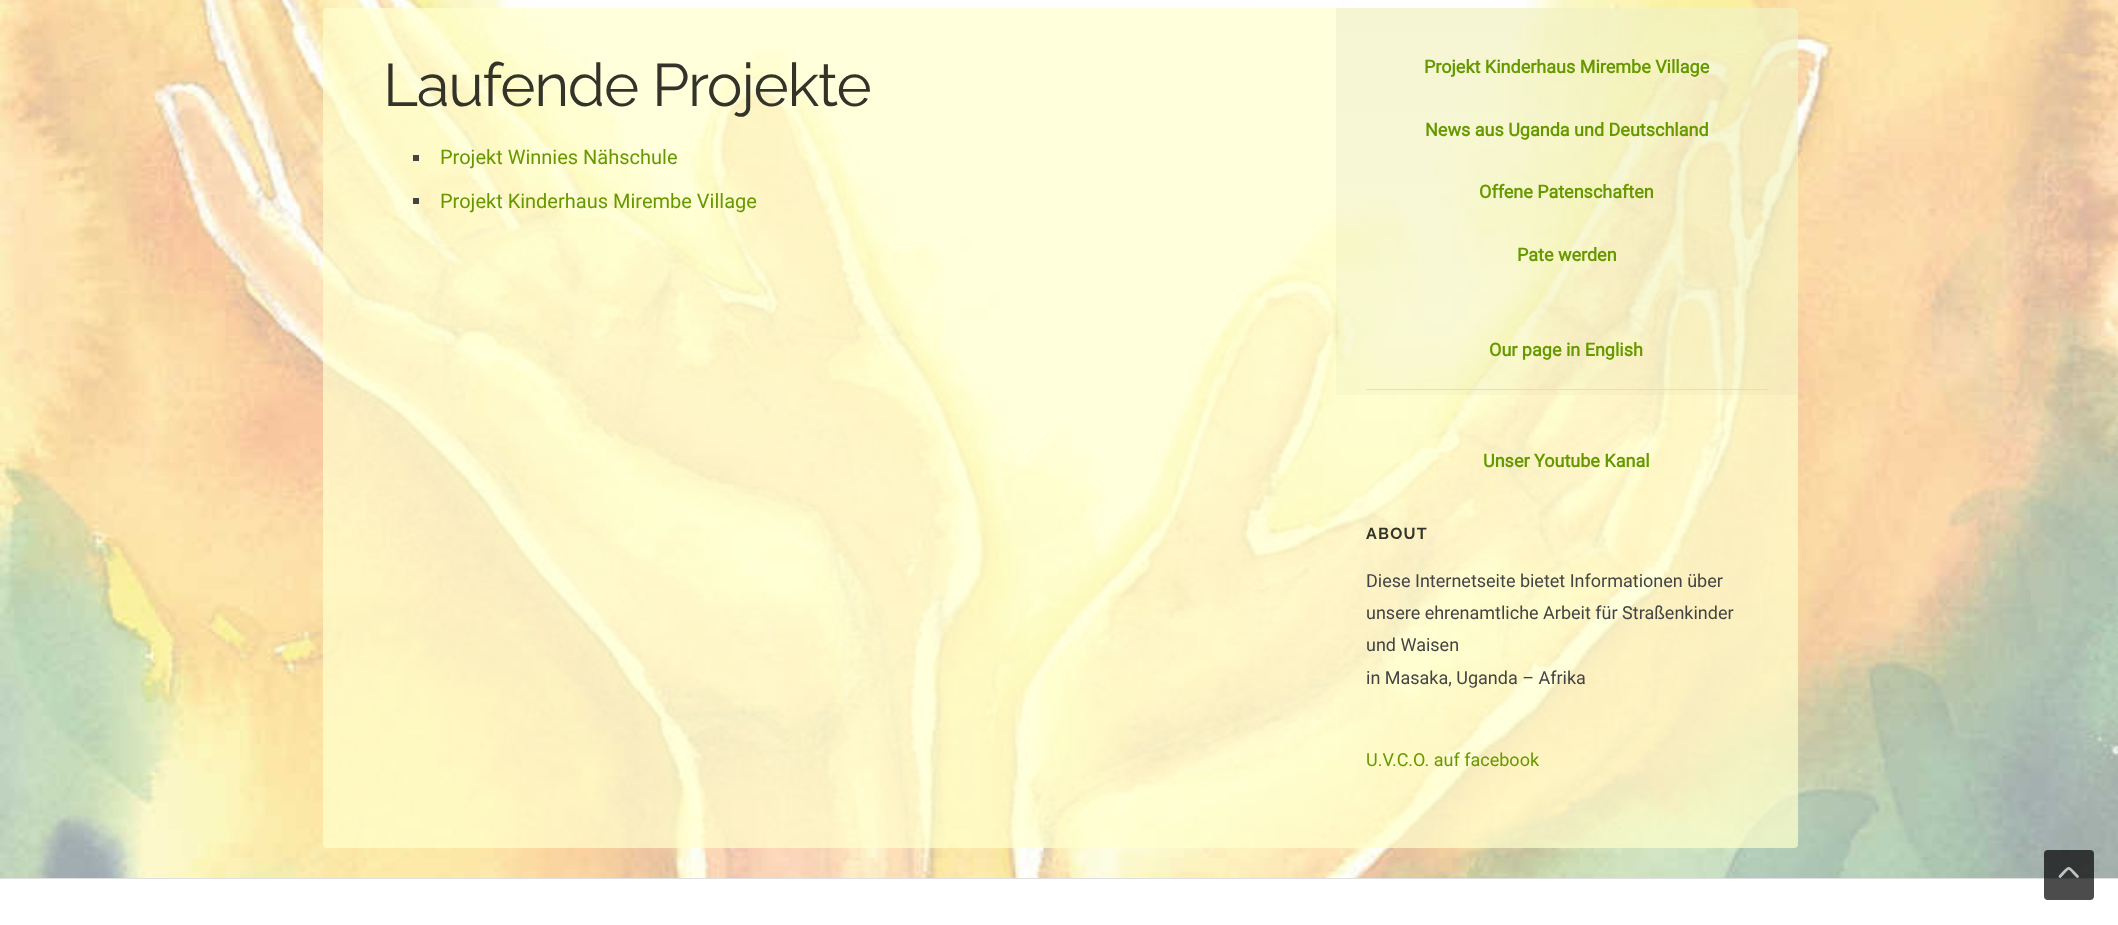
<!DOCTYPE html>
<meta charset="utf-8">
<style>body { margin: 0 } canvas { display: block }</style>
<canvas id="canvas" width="2118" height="925"></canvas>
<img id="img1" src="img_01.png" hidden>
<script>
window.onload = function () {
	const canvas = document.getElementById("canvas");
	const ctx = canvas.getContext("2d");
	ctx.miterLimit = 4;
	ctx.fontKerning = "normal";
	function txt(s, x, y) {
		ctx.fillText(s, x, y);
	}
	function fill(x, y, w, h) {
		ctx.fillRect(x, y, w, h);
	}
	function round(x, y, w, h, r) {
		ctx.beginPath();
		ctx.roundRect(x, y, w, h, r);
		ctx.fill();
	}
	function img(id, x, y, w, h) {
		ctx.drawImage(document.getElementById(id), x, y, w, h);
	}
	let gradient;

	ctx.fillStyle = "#FFFFFF";
	fill(0, 0, 2118, 925);
	img("img1", 0, 0, 2118, 878);
	ctx.fillStyle = "rgba(255, 255, 205, 0.7)";
	round(323, 8, 1475, 840, 4);
	ctx.fillStyle = "#444444";
	fill(413, 155, 6, 6);
	fill(413, 198, 6, 6);
	gradient = ctx.createLinearGradient(1567, 848, 1567, 7.5);
	gradient.addColorStop(0, "rgba(0, 0, 0, 0)");
	gradient.addColorStop(1, "rgba(0, 0, 0, 0.04)");
	ctx.fillStyle = gradient;
	fill(1336, 8, 462, 387);
	ctx.fillStyle = "#DDDDDD";
	fill(1366, 389, 402, 1);
	ctx.fillStyle = "#E0E0E0";
	fill(0, 878, 2118, 1);
	ctx.fillStyle = "rgba(0, 0, 0, 0.7)";
	round(2044, 850, 50, 50, 4);
	ctx.beginPath();
	ctx.moveTo(2077.5, 876.5);
	ctx.bezierCurveTo(2067, 866, 2070.5, 865.5, 2060, 876.5);
	ctx.strokeStyle = "#C1C2C2";
	ctx.lineWidth = 2.8;
	ctx.lineCap = "round";
	ctx.lineJoin = "bevel";
	ctx.stroke();
	ctx.letterSpacing = "-1.25px";
	ctx.font = "60px Raleway";
	ctx.fillStyle = "#33332A";
	txt("Laufende Projekte", 383, 106);
	ctx.letterSpacing = "0px";
	ctx.font = "20px Roboto";
	ctx.fillStyle = "#669900";
	txt("Projekt Winnies Nähschule", 440, 164);
	txt("Projekt Kinderhaus Mirembe Village", 440, 208);
	ctx.font = "bold 18px Roboto";
	txt("Projekt Kinderhaus Mirembe Village", 1424, 73);
	txt("News aus Uganda und Deutschland", 1425, 136);
	txt("Offene Patenschaften", 1479, 198);
	txt("Pate werden", 1517, 261);
	txt("Our page in English", 1489, 356);
	txt("Unser Youtube Kanal", 1483, 467);
	ctx.letterSpacing = "1.25px";
	ctx.font = "bold 16px Raleway";
	ctx.fillStyle = "#33332A";
	txt("ABOUT", 1366, 539);
	ctx.letterSpacing = "0px";
	ctx.font = "18px Roboto";
	ctx.fillStyle = "#444444";
	txt("Diese Internetseite bietet Informationen über", 1366, 587);
	txt("unsere ehrenamtliche Arbeit für Straßenkinder", 1366, 619);
	txt("und Waisen", 1366, 651);
	txt("in Masaka, Uganda – Afrika", 1366, 684);
	ctx.fillStyle = "#669900";
	txt("U.V.C.O. auf facebook", 1366, 766);
};
</script>
